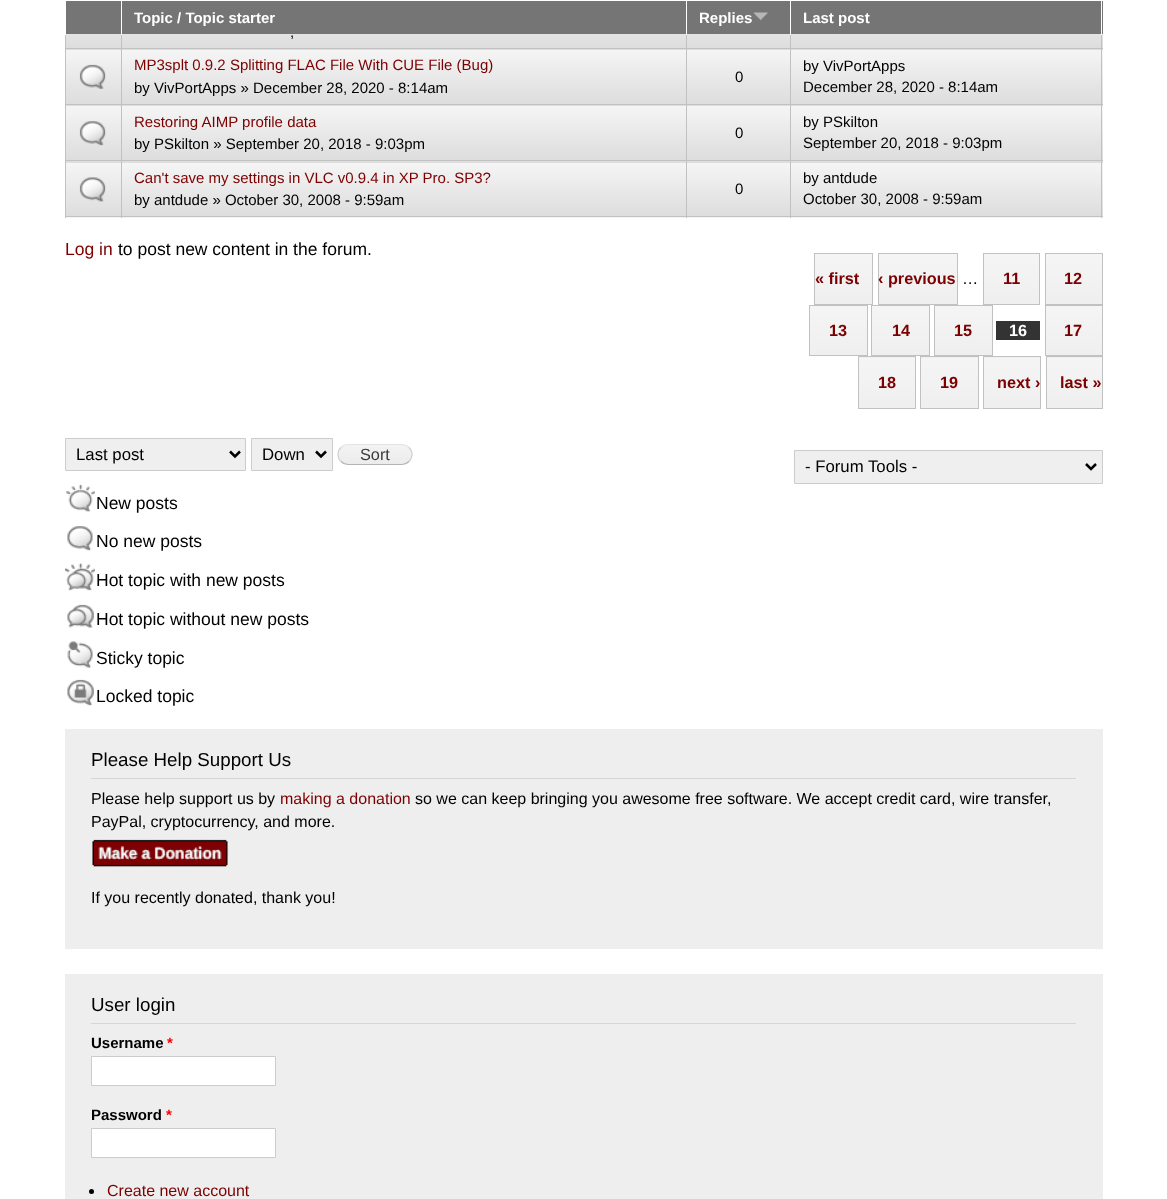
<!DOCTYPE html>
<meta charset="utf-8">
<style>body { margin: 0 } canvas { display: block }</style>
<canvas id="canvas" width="1167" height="1199"></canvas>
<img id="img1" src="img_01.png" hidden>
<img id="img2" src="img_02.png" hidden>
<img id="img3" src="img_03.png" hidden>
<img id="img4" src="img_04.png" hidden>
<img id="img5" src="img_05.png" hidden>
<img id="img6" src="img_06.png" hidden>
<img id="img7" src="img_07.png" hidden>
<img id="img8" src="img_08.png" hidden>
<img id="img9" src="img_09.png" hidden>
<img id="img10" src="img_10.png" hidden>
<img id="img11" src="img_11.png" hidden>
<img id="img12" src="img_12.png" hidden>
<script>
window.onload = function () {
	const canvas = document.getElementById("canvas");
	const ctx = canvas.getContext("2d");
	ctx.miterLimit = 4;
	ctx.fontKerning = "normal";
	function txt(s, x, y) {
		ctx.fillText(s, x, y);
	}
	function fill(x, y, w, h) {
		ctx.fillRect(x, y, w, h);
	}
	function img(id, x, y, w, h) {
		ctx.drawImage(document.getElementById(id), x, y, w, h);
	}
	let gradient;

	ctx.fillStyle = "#FFFFFF";
	fill(0, 0, 1167, 1199);
	ctx.fillStyle = "#757575";
	fill(66, 1, 724, 33);
	gradient = ctx.createLinearGradient(66, -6.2, 66, 48);
	gradient.addColorStop(0, "#F5F5F5");
	gradient.addColorStop(1, "#DDDDDD");
	ctx.fillStyle = gradient;
	fill(66, 34, 1037, 14);
	ctx.fillStyle = "#FFFFFF";
	fill(121, 0, 1, 35);
	fill(686, 0, 1, 35);
	img("img1", 753, 12, 15, 9);
	ctx.fillStyle = "#757575";
	fill(791, 1, 312, 33);
	ctx.fillStyle = "#FFFFFF";
	fill(1101, 0, 1, 35);
	fill(790, 34, 1, 1);
	gradient = ctx.createLinearGradient(66, -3.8, 66, 50);
	gradient.addColorStop(0, "#F5F5F5");
	gradient.addColorStop(1, "#DDDDDD");
	ctx.fillStyle = gradient;
	fill(66, 49, 1037, 1);
	gradient = ctx.createLinearGradient(66, 50, 66, 104);
	gradient.addColorStop(0, "#F5F5F5");
	gradient.addColorStop(1, "#DDDDDD");
	ctx.fillStyle = gradient;
	fill(66, 50, 1037, 54);
	gradient = ctx.createLinearGradient(66, 53, 66, 106);
	gradient.addColorStop(0, "#F5F5F5");
	gradient.addColorStop(1, "#DDDDDD");
	ctx.fillStyle = gradient;
	fill(66, 105, 1037, 1);
	gradient = ctx.createLinearGradient(66, 106, 66, 160);
	gradient.addColorStop(0, "#F5F5F5");
	gradient.addColorStop(1, "#DDDDDD");
	ctx.fillStyle = gradient;
	fill(66, 106, 1037, 54);
	ctx.fillStyle = "#C1C1C1";
	fill(1101, 35, 1, 125);
	fill(65, 35, 1, 183);
	fill(790, 48, 313, 1);
	fill(790, 104, 313, 1);
	fill(790, 160, 313, 1);
	gradient = ctx.createLinearGradient(66, 109, 66, 163);
	gradient.addColorStop(0, "#F5F5F5");
	gradient.addColorStop(1, "#DDDDDD");
	ctx.fillStyle = gradient;
	fill(66, 161, 1037, 2);
	gradient = ctx.createLinearGradient(66, 163, 66, 216);
	gradient.addColorStop(0, "#F5F5F5");
	gradient.addColorStop(1, "#DDDDDD");
	ctx.fillStyle = gradient;
	fill(66, 163, 1037, 53);
	gradient = ctx.createLinearGradient(66, 216, 66, 270);
	gradient.addColorStop(0, "#F5F5F5");
	gradient.addColorStop(1, "#DDDDDD");
	ctx.fillStyle = gradient;
	fill(66, 217, 1037, 1);
	ctx.fillStyle = "#C1C1C1";
	fill(1101, 160, 1, 58);
	fill(790, 216, 313, 1);
	fill(790, 160, 1, 58);
	fill(686, 160, 105, 1);
	fill(790, 104, 1, 57);
	fill(686, 104, 105, 1);
	fill(790, 48, 1, 57);
	fill(686, 48, 105, 1);
	fill(686, 216, 105, 1);
	fill(686, 160, 1, 58);
	fill(121, 160, 567, 1);
	fill(686, 104, 1, 57);
	fill(121, 104, 567, 1);
	fill(686, 48, 1, 57);
	fill(121, 48, 567, 1);
	fill(121, 216, 567, 1);
	fill(121, 160, 1, 58);
	fill(65, 160, 58, 1);
	fill(121, 104, 1, 57);
	fill(65, 104, 58, 1);
	fill(121, 48, 1, 57);
	fill(65, 48, 58, 1);
	fill(121, 35, 1, 14);
	fill(686, 35, 1, 14);
	fill(790, 35, 1, 14);
	img("img2", 79, 64, 27, 25);
	img("img3", 79, 121, 27, 25);
	fill(65, 216, 58, 1);
	img("img4", 79, 177, 27, 25);
	gradient = ctx.createLinearGradient(815, 254, 815, 304);
	gradient.addColorStop(0, "#F5F5F5");
	gradient.addColorStop(1, "#EFEFEF");
	ctx.fillStyle = gradient;
	fill(815, 254, 57, 50);
	ctx.strokeStyle = "#C1C1C1";
	ctx.strokeRect(814.5, 253.5, 58, 51);
	gradient = ctx.createLinearGradient(879, 254, 879, 304);
	gradient.addColorStop(0, "#F5F5F5");
	gradient.addColorStop(1, "#EFEFEF");
	ctx.fillStyle = gradient;
	fill(879, 254, 78, 50);
	ctx.strokeRect(878.5, 253.5, 79, 51);
	gradient = ctx.createLinearGradient(984, 254, 984, 304);
	gradient.addColorStop(0, "#F5F5F5");
	gradient.addColorStop(1, "#EFEFEF");
	ctx.fillStyle = gradient;
	fill(984, 254, 55, 50);
	ctx.strokeRect(983.5, 253.5, 56, 51);
	gradient = ctx.createLinearGradient(1046, 254, 1046, 304);
	gradient.addColorStop(0, "#F5F5F5");
	gradient.addColorStop(1, "#EFEFEF");
	ctx.fillStyle = gradient;
	fill(1046, 254, 56, 50);
	ctx.strokeRect(1045.5, 253.5, 57, 51);
	gradient = ctx.createLinearGradient(810, 306, 810, 355);
	gradient.addColorStop(0, "#F5F5F5");
	gradient.addColorStop(1, "#EFEFEF");
	ctx.fillStyle = gradient;
	fill(810, 306, 57, 49);
	ctx.strokeRect(809.5, 305.5, 58, 50);
	gradient = ctx.createLinearGradient(873, 306, 873, 355);
	gradient.addColorStop(0, "#F5F5F5");
	gradient.addColorStop(1, "#EFEFEF");
	ctx.fillStyle = gradient;
	fill(872, 306, 57, 49);
	ctx.strokeRect(871.5, 305.5, 58, 50);
	gradient = ctx.createLinearGradient(935, 306, 935, 355);
	gradient.addColorStop(0, "#F5F5F5");
	gradient.addColorStop(1, "#EFEFEF");
	ctx.fillStyle = gradient;
	fill(935, 306, 57, 49);
	ctx.strokeRect(934.5, 305.5, 58, 50);
	ctx.fillStyle = "#333333";
	fill(996, 321, 44, 19);
	gradient = ctx.createLinearGradient(1046, 306, 1046, 355);
	gradient.addColorStop(0, "#F5F5F5");
	gradient.addColorStop(1, "#EFEFEF");
	ctx.fillStyle = gradient;
	fill(1046, 306, 56, 49);
	ctx.strokeRect(1045.5, 305.5, 57, 50);
	gradient = ctx.createLinearGradient(859, 308, 859, 358);
	gradient.addColorStop(0, "#F5F5F5");
	gradient.addColorStop(1, "#EFEFEF");
	ctx.fillStyle = gradient;
	fill(858, 357, 58, 1);
	gradient = ctx.createLinearGradient(859, 358, 859, 408);
	gradient.addColorStop(0, "#F5F5F5");
	gradient.addColorStop(1, "#EFEFEF");
	ctx.fillStyle = gradient;
	fill(859, 358, 56, 50);
	ctx.strokeRect(858.5, 356.5, 57, 52);
	gradient = ctx.createLinearGradient(921, 308, 921, 358);
	gradient.addColorStop(0, "#F5F5F5");
	gradient.addColorStop(1, "#EFEFEF");
	ctx.fillStyle = gradient;
	fill(920, 357, 59, 1);
	gradient = ctx.createLinearGradient(921, 358, 921, 408);
	gradient.addColorStop(0, "#F5F5F5");
	gradient.addColorStop(1, "#EFEFEF");
	ctx.fillStyle = gradient;
	fill(921, 358, 57, 50);
	ctx.strokeRect(920.5, 356.5, 58, 52);
	gradient = ctx.createLinearGradient(984, 308, 984, 358);
	gradient.addColorStop(0, "#F5F5F5");
	gradient.addColorStop(1, "#EFEFEF");
	ctx.fillStyle = gradient;
	fill(983, 357, 58, 1);
	gradient = ctx.createLinearGradient(984, 358, 984, 408);
	gradient.addColorStop(0, "#F5F5F5");
	gradient.addColorStop(1, "#EFEFEF");
	ctx.fillStyle = gradient;
	fill(984, 358, 56, 50);
	ctx.strokeRect(983.5, 356.5, 57, 52);
	gradient = ctx.createLinearGradient(1048, 308, 1048, 358);
	gradient.addColorStop(0, "#F5F5F5");
	gradient.addColorStop(1, "#EFEFEF");
	ctx.fillStyle = gradient;
	fill(1046, 357, 57, 1);
	gradient = ctx.createLinearGradient(1048, 358, 1048, 408);
	gradient.addColorStop(0, "#F5F5F5");
	gradient.addColorStop(1, "#EFEFEF");
	ctx.fillStyle = gradient;
	fill(1047, 358, 55, 50);
	ctx.strokeRect(1046.5, 356.5, 56, 52);
	ctx.fillStyle = "#EFEFEF";
	ctx.beginPath();
	ctx.rect(65.5, 438.5, 180, 32);
	ctx.fill();
	ctx.strokeStyle = "#CCCCCC";
	ctx.stroke();
	ctx.beginPath();
	ctx.moveTo(230, 451.5);
	ctx.lineTo(235, 456.5);
	ctx.lineTo(240, 451.5);
	ctx.strokeStyle = "#000000";
	ctx.lineWidth = 2.5;
	ctx.stroke();
	ctx.beginPath();
	ctx.rect(251.5, 438.5, 81, 32);
	ctx.fill();
	ctx.strokeStyle = "#CCCCCC";
	ctx.lineWidth = 1;
	ctx.stroke();
	ctx.beginPath();
	ctx.moveTo(316, 451.5);
	ctx.lineTo(321, 456.5);
	ctx.lineTo(326, 451.5);
	ctx.strokeStyle = "#000000";
	ctx.lineWidth = 2.5;
	ctx.stroke();
	img("img5", 337, 445, 76, 20);
	ctx.beginPath();
	ctx.moveTo(341, 447.5);
	ctx.bezierCurveTo(343, 445.5, 345.5, 444.5, 348, 444.5);
	ctx.lineTo(402, 444.5);
	ctx.bezierCurveTo(404.5, 444.5, 407, 445.5, 409, 447.5);
	ctx.strokeStyle = "#E4E4E4";
	ctx.lineWidth = 1.2;
	ctx.stroke();
	ctx.beginPath();
	ctx.moveTo(409, 447.5);
	ctx.bezierCurveTo(413, 451, 413, 457.5, 409, 461.5);
	ctx.strokeStyle = "#D2D2D2";
	ctx.stroke();
	ctx.beginPath();
	ctx.moveTo(409, 461.5);
	ctx.bezierCurveTo(407, 463.5, 404.5, 464.5, 402, 464.5);
	ctx.lineTo(348, 464.5);
	ctx.bezierCurveTo(345.5, 464.5, 343, 463.5, 341, 461.5);
	ctx.strokeStyle = "#B4B4B4";
	ctx.stroke();
	ctx.beginPath();
	ctx.moveTo(341, 461.5);
	ctx.bezierCurveTo(337, 457.5, 337, 451, 341, 447.5);
	ctx.strokeStyle = "#D2D2D2";
	ctx.stroke();
	ctx.beginPath();
	ctx.rect(794.5, 450.5, 308, 33);
	ctx.fill();
	ctx.strokeStyle = "#CCCCCC";
	ctx.lineWidth = 1;
	ctx.stroke();
	ctx.beginPath();
	ctx.moveTo(1086, 464);
	ctx.lineTo(1091, 469);
	ctx.lineTo(1096, 464);
	ctx.strokeStyle = "#000000";
	ctx.lineWidth = 2.5;
	ctx.stroke();
	img("img6", 66, 484, 29, 28);
	img("img7", 67, 526, 26, 25);
	img("img8", 65, 563, 30, 28);
	img("img9", 67, 604, 27, 24);
	img("img10", 67, 641, 26, 27);
	img("img11", 67, 679, 27, 27);
	ctx.fillStyle = "#EEEEEE";
	fill(65, 729, 1038, 220);
	ctx.fillStyle = "#D6D6D6";
	fill(91, 778, 985, 1);
	img("img12", 92, 839, 137, 28);
	ctx.fillStyle = "#EEEEEE";
	fill(65, 974, 1038, 225);
	ctx.fillStyle = "#D6D6D6";
	fill(91, 1023, 985, 1);
	ctx.fillStyle = "#FFFFFF";
	ctx.beginPath();
	ctx.rect(91.5, 1056.5, 184, 29);
	ctx.fill();
	ctx.strokeStyle = "#CCCCCC";
	ctx.lineWidth = 1;
	ctx.stroke();
	ctx.beginPath();
	ctx.rect(91.5, 1128.5, 184, 29);
	ctx.fill();
	ctx.stroke();
	ctx.fillStyle = "#000000";
	ctx.beginPath();
	ctx.arc(91.5, 1191.5, 2.5, 0, Math.PI * 2);
	ctx.fill();
	ctx.font = "bold 15px Arimo";
	ctx.fillStyle = "#FFFFFF";
	txt("Topic / Topic starter", 134, 23);
	txt("Replies", 699, 23);
	txt("Last post", 803, 23);
	ctx.font = "15px Arimo";
	ctx.fillStyle = "#000000";
	txt(",", 290, 37);
	ctx.fillStyle = "#7D0000";
	txt("MP3splt 0.9.2 Splitting FLAC File With CUE File (Bug)", 134, 70);
	ctx.fillStyle = "#000000";
	txt("by VivPortApps » December 28, 2020 - 8:14am", 134, 93);
	txt("0", 735, 82);
	txt("by VivPortApps", 803, 71);
	txt("December 28, 2020 - 8:14am", 803, 92);
	ctx.fillStyle = "#7D0000";
	txt("Restoring AIMP profile data", 134, 127);
	ctx.fillStyle = "#000000";
	txt("by PSkilton » September 20, 2018 - 9:03pm", 134, 149);
	txt("0", 735, 138);
	txt("by PSkilton", 803, 127);
	txt("September 20, 2018 - 9:03pm", 803, 148);
	ctx.fillStyle = "#7D0000";
	txt("Can't save my settings in VLC v0.9.4 in XP Pro. SP3?", 134, 183);
	ctx.fillStyle = "#000000";
	txt("by antdude » October 30, 2008 - 9:59am", 134, 205);
	txt("0", 735, 194);
	txt("by antdude", 803, 183);
	txt("October 30, 2008 - 9:59am", 803, 204);
	ctx.font = "17.5px Arimo";
	ctx.fillStyle = "#7D0000";
	txt("Log in", 65, 255);
	ctx.fillStyle = "#000000";
	txt("to post new content in the forum.", 118, 255);
	ctx.font = "bold 16.25px Arimo";
	ctx.fillStyle = "#7D0000";
	txt("« first", 815, 284);
	txt("‹ previous", 878, 284);
	ctx.font = "16.25px Arimo";
	ctx.fillStyle = "#000000";
	txt("…", 962, 284);
	ctx.font = "bold 16.25px Arimo";
	ctx.fillStyle = "#7D0000";
	txt("11", 1003, 284);
	txt("12", 1064, 284);
	txt("13", 829, 336);
	txt("14", 892, 336);
	txt("15", 954, 336);
	ctx.fillStyle = "#FFFFFF";
	txt("16", 1009, 336);
	ctx.fillStyle = "#7D0000";
	txt("17", 1064, 336);
	txt("18", 878, 388);
	txt("19", 940, 388);
	txt("next ›", 997, 388);
	txt("last »", 1060, 388);
	ctx.font = "16.75px Arimo";
	ctx.fillStyle = "#000000";
	txt("Last post", 76, 460);
	txt("Down", 262, 460);
	ctx.font = "16.25px Arimo";
	ctx.fillStyle = "#3A3A3A";
	txt("Sort", 360, 460);
	ctx.font = "16.75px Arimo";
	ctx.fillStyle = "#000000";
	txt("- Forum Tools -", 805, 472);
	ctx.font = "17.5px Arimo";
	txt("New posts", 96, 509);
	txt("No new posts", 96, 547);
	txt("Hot topic with new posts", 96, 586);
	txt("Hot topic without new posts", 96, 625);
	txt("Sticky topic", 96, 664);
	txt("Locked topic", 96, 702);
	ctx.font = "18.75px Arimo";
	txt("Please Help Support Us", 91, 766);
	ctx.font = "16px Arimo";
	txt("Please help support us by", 91, 804);
	ctx.fillStyle = "#7D0000";
	txt("making a donation", 280, 804);
	ctx.fillStyle = "#000000";
	txt("so we can keep bringing you awesome free software. We accept credit card, wire transfer,", 415, 804);
	txt("PayPal, cryptocurrency, and more.", 91, 827);
	txt("If you recently donated, thank you!", 91, 903);
	ctx.font = "18.75px Arimo";
	txt("User login", 91, 1011);
	ctx.font = "bold 15px Arimo";
	txt("Username", 91, 1048);
	ctx.fillStyle = "#FF0000";
	txt("*", 167, 1048);
	ctx.fillStyle = "#000000";
	txt("Password", 91, 1120);
	ctx.fillStyle = "#FF0000";
	txt("*", 166, 1120);
	ctx.font = "16px Arimo";
	ctx.fillStyle = "#7D0000";
	txt("Create new account", 107, 1196);
};
</script>
